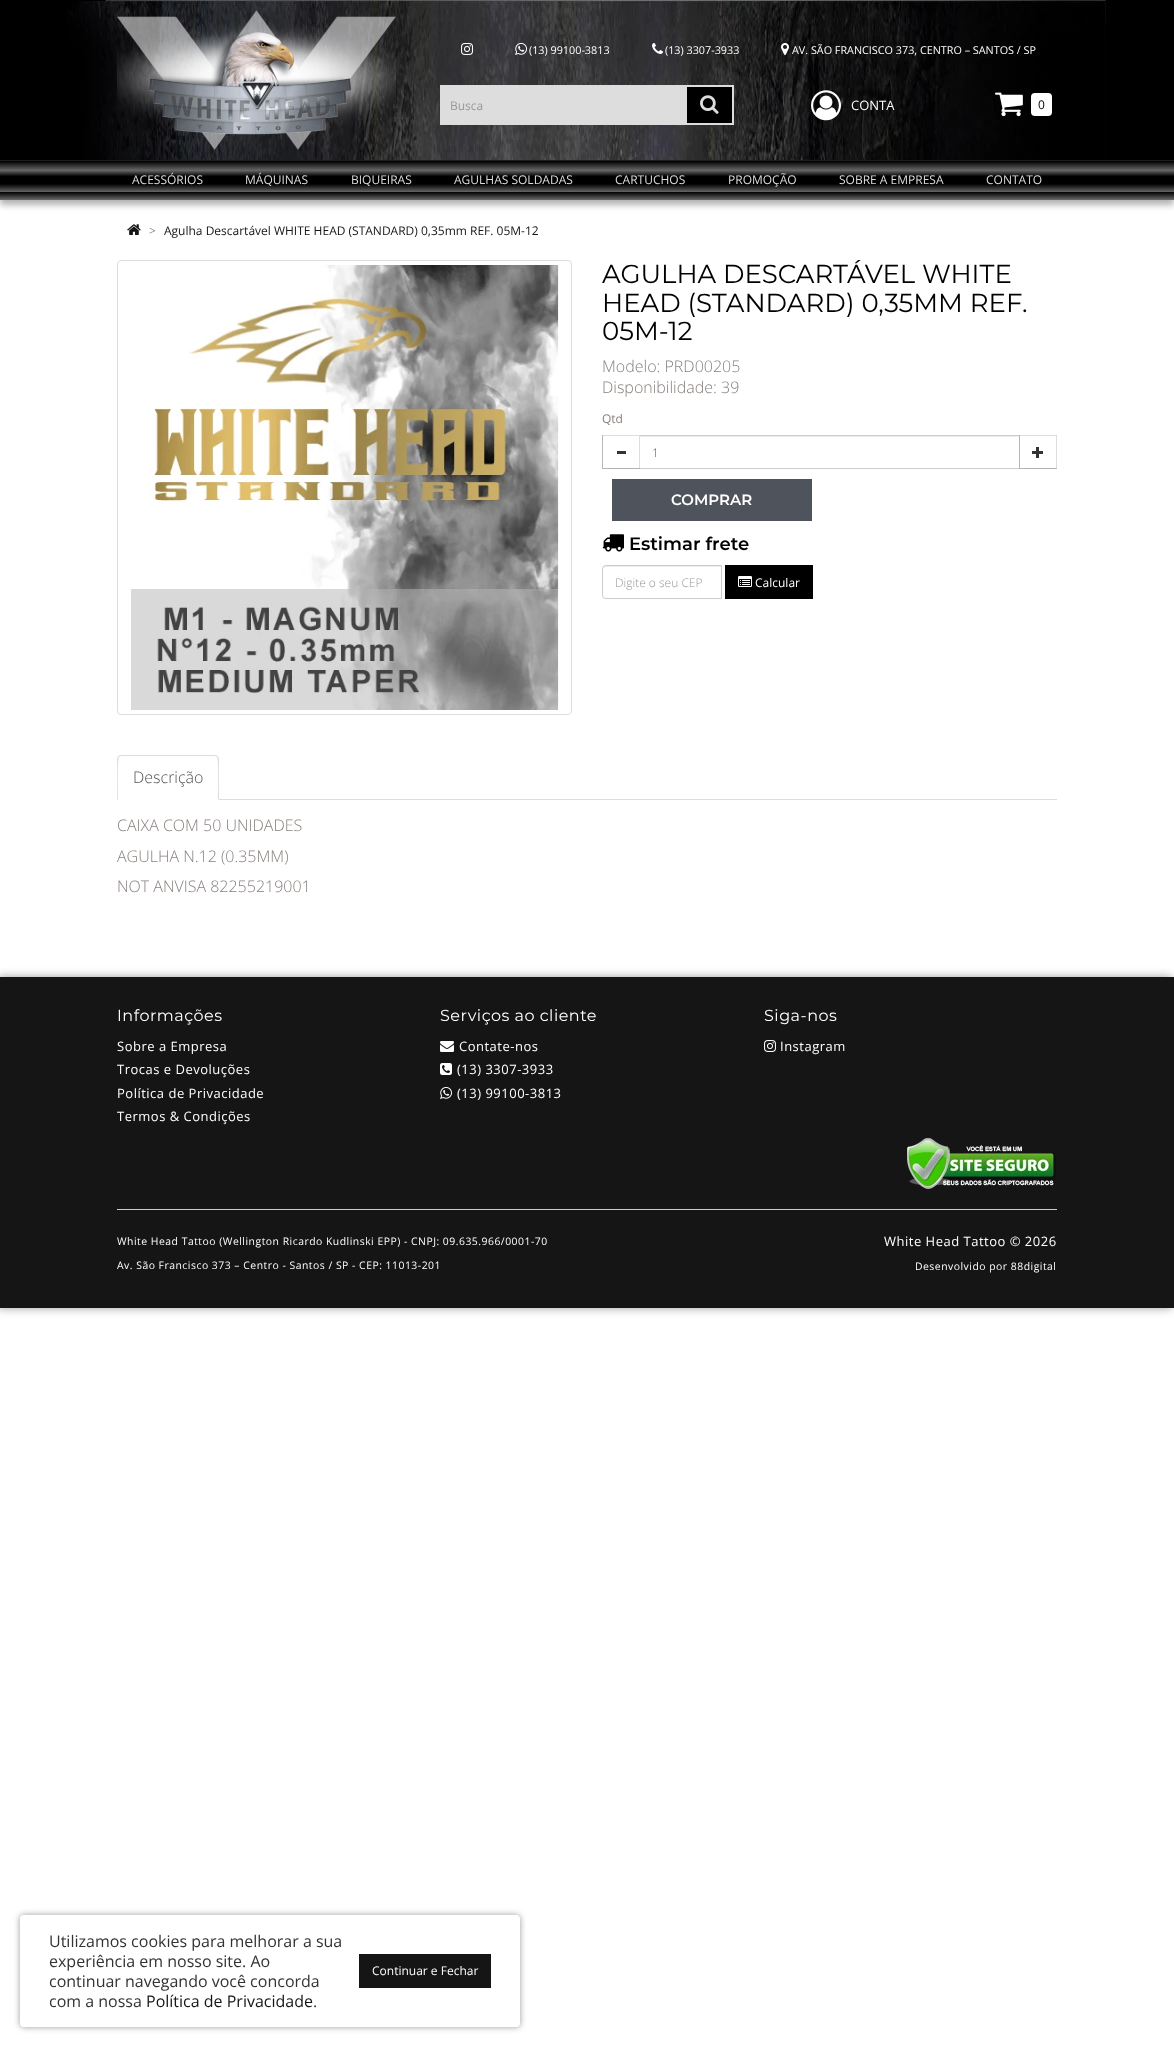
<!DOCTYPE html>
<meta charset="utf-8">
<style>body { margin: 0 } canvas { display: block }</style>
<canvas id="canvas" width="1174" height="2047"></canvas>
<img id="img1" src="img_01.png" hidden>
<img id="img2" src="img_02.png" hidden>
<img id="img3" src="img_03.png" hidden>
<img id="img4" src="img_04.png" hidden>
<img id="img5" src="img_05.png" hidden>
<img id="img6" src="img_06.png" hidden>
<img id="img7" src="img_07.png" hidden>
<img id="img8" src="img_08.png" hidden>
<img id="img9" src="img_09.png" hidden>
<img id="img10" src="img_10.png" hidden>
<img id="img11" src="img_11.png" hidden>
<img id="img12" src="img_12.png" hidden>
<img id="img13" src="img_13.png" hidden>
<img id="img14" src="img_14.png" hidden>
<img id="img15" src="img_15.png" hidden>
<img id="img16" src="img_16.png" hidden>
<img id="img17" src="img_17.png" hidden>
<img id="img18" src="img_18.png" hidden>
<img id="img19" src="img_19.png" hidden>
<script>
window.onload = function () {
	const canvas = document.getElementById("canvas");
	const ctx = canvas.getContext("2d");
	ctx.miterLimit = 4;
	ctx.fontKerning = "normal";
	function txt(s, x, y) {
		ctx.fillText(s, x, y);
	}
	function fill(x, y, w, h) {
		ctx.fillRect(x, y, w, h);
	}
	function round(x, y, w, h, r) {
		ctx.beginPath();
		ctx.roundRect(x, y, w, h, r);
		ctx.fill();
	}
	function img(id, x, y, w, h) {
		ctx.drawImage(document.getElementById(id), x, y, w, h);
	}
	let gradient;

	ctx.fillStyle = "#FFFFFF";
	fill(0, 0, 1174, 2047);
	ctx.fillStyle = "rgba(0, 0, 0, 0.3)";
	ctx.filter = "blur(3px)";
	ctx.beginPath();
	ctx.rect(0, 165, 1174, 40);
	ctx.fill();
	ctx.filter = "none";
	ctx.fillStyle = "#000000";
	fill(0, 0, 1174, 160);
	img("img1", 67, 0, 1039, 160);
	img("img2", 117, 10, 279, 140);
	img("img3", 461, 43, 13, 12);
	img("img4", 515, 42, 12, 13);
	img("img5", 652, 43, 11, 11);
	img("img6", 781, 43, 8, 12);
	ctx.fillStyle = "#DDDDDD";
	fill(440, 85, 245, 40);
	ctx.fillStyle = "#000000";
	ctx.beginPath();
	ctx.rect(686, 86, 47, 38);
	ctx.fill();
	ctx.strokeStyle = "#DDDDDD";
	ctx.lineWidth = 2;
	ctx.stroke();
	img("img7", 700, 95, 19, 19);
	img("img8", 811, 90, 30, 31);
	img("img9", 995, 92, 28, 25);
	ctx.fillStyle = "#FFFFFF";
	round(1031, 93, 21, 23, 4);
	gradient = ctx.createLinearGradient(587, 160, 587, 200);
	gradient.addColorStop(0, "#333333");
	gradient.addColorStop(0.03, "#000000");
	gradient.addColorStop(0.18, "#444444");
	gradient.addColorStop(0.26, "#666666");
	gradient.addColorStop(0.41, "#000000");
	gradient.addColorStop(0.6, "#000000");
	gradient.addColorStop(0.8, "#666666");
	gradient.addColorStop(0.8, "#000000");
	gradient.addColorStop(0.99, "#666666");
	ctx.fillStyle = gradient;
	fill(0, 160, 1174, 40);
	img("img10", 127, 224, 14, 11);
	ctx.beginPath();
	ctx.roundRect(117.5, 260.5, 454, 454, 3.5);
	ctx.lineWidth = 1;
	ctx.stroke();
	img("img11", 131, 265, 428, 445);
	ctx.fillStyle = "#ECECEC";
	fill(640, 436, 379, 1);
	ctx.strokeStyle = "#CCCCCC";
	ctx.strokeRect(639.5, 435.5, 380, 33);
	ctx.fillStyle = "#DDDDDD";
	fill(602, 435, 38, 1);
	fill(639, 435, 1, 34);
	ctx.fillStyle = "#B3B3B3";
	fill(602, 468, 38, 1);
	ctx.fillStyle = "#B7B7B7";
	fill(602, 435, 1, 34);
	ctx.fillStyle = "#333333";
	fill(617, 451, 9, 3);
	ctx.fillStyle = "#DDDDDD";
	fill(1019, 435, 38, 1);
	fill(1056, 435, 1, 34);
	ctx.fillStyle = "#B3B3B3";
	fill(1019, 468, 38, 1);
	ctx.fillStyle = "#B7B7B7";
	fill(1019, 435, 1, 34);
	img("img12", 1032, 447, 11, 11);
	ctx.fillStyle = "#4F535B";
	fill(612, 479, 200, 42);
	img("img13", 602, 534, 22, 18);
	ctx.fillStyle = "#ECECEC";
	ctx.beginPath();
	ctx.moveTo(606, 567);
	ctx.lineTo(721, 567);
	ctx.lineTo(721, 566);
	ctx.lineTo(606, 566);
	ctx.bezierCurveTo(604, 566, 603, 567, 603, 569);
	ctx.lineTo(603, 570);
	ctx.bezierCurveTo(603, 568, 604, 567, 606, 567);
	ctx.closePath();
	ctx.fill();
	ctx.beginPath();
	ctx.roundRect(602.5, 565.5, 119, 33, [3.5, 0, 0, 3.5]);
	ctx.stroke();
	ctx.fillStyle = "#000000";
	fill(725, 565, 88, 34);
	img("img14", 738, 576, 14, 11);
	ctx.fillStyle = "#DDDDDD";
	fill(219, 799, 838, 1);
	ctx.beginPath();
	ctx.moveTo(121, 755);
	ctx.lineTo(118, 756);
	ctx.lineTo(119, 757);
	ctx.lineTo(121, 756);
	ctx.lineTo(215, 756);
	ctx.lineTo(217, 757);
	ctx.lineTo(218, 756);
	ctx.lineTo(215, 755);
	ctx.closePath();
	ctx.fill();
	ctx.beginPath();
	ctx.moveTo(219, 800);
	ctx.lineTo(219, 759);
	ctx.bezierCurveTo(219, 758, 218, 757, 218, 756);
	ctx.lineTo(217, 757);
	ctx.bezierCurveTo(219, 759, 218, 794, 218, 799);
	ctx.closePath();
	ctx.fill();
	ctx.beginPath();
	ctx.moveTo(117, 800);
	ctx.lineTo(118, 799);
	ctx.bezierCurveTo(118, 794, 117, 759, 119, 757);
	ctx.lineTo(118, 756);
	ctx.lineTo(117, 759);
	ctx.closePath();
	ctx.fill();
	ctx.fillStyle = "rgba(0, 0, 0, 0.4)";
	ctx.filter = "blur(5px)";
	ctx.beginPath();
	ctx.rect(-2, 977, 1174, 331);
	ctx.fill();
	ctx.filter = "none";
	ctx.fillStyle = "#151515";
	fill(0, 977, 1174, 331);
	img("img15", 440, 1041, 14, 11);
	img("img16", 440, 1063, 12, 12);
	img("img17", 440, 1087, 12, 12);
	img("img18", 764, 1040, 12, 12);
	img("img19", 907, 1138, 149, 51);
	ctx.fillStyle = "#CCCCCC";
	fill(117, 1209, 940, 1);
	ctx.fillStyle = "rgba(0, 0, 0, 0.4)";
	ctx.filter = "blur(3px)";
	ctx.beginPath();
	ctx.roundRect(20, 1915, 500, 112, 4);
	ctx.fill();
	ctx.filter = "none";
	ctx.fillStyle = "#FFFFFF";
	round(20, 1915, 500, 112, 4);
	ctx.fillStyle = "#151515";
	fill(359, 1954, 132, 34);
	ctx.font = "10.8px Open Sans";
	ctx.fillStyle = "#FFFFFF";
	txt("(13) 99100-3813", 529, 54);
	txt("(13) 3307-3933", 665, 54);
	txt("AV. SÃO FRANCISCO 373, CENTRO – SANTOS / SP", 792, 54);
	ctx.font = "12px Open Sans";
	ctx.fillStyle = "#999999";
	txt("Busca", 450, 110);
	ctx.font = "13px Open Sans";
	ctx.fillStyle = "#FFFFFF";
	txt("CONTA", 851, 110);
	ctx.font = "12px Open Sans";
	ctx.fillStyle = "#000000";
	txt("0", 1038, 109);
	ctx.fillStyle = "#DDDDDD";
	txt("ACESSÓRIOS", 132, 184);
	txt("MÁQUINAS", 245, 184);
	txt("BIQUEIRAS", 351, 184);
	txt("AGULHAS SOLDADAS", 454, 184);
	txt("CARTUCHOS", 615, 184);
	txt("PROMOÇÃO", 728, 184);
	txt("SOBRE A EMPRESA", 839, 184);
	txt("CONTATO", 986, 184);
	ctx.fillStyle = "#88817E";
	txt(">", 149, 235);
	ctx.fillStyle = "#151515";
	txt("Agulha Descartável WHITE HEAD (STANDARD) 0,35mm REF. 05M-12", 164, 235);
	ctx.font = "26px Montserrat";
	ctx.fillStyle = "#000000";
	txt("AGULHA DESCARTÁVEL WHITE", 602, 283);
	txt("HEAD (STANDARD) 0,35MM REF.", 602, 312);
	txt("05M-12", 602, 340);
	ctx.font = "300 16px Open Sans";
	ctx.fillStyle = "#88817E";
	txt("Modelo: PRD00205", 602, 372);
	txt("Disponibilidade: 39", 602, 393);
	ctx.font = "12px Open Sans";
	txt("Qtd", 602, 423);
	ctx.font = "300 12px Open Sans";
	ctx.fillStyle = "#555555";
	txt("1", 652, 457);
	ctx.font = "600 15px Montserrat";
	ctx.fillStyle = "#FFFFFF";
	txt("COMPRAR", 671, 505);
	ctx.font = "600 18px Montserrat";
	ctx.fillStyle = "#000000";
	txt("Estimar frete", 629, 550);
	ctx.font = "300 12px Open Sans";
	ctx.fillStyle = "#999999";
	txt("Digite o seu CEP", 615, 587);
	ctx.font = "12px Open Sans";
	ctx.fillStyle = "#FFFFFF";
	txt("Calcular", 755, 587);
	ctx.font = "300 16px Open Sans";
	ctx.fillStyle = "#555555";
	txt("Descrição", 133, 783);
	ctx.fillStyle = "#88817E";
	txt("CAIXA COM 50 UNIDADES", 117, 831);
	txt("AGULHA N.12 (0.35MM)", 117, 862);
	txt("NOT ANVISA 82255219001", 117, 892);
	ctx.letterSpacing = "0.5px";
	ctx.font = "16px Montserrat";
	ctx.fillStyle = "#FFFFFF";
	txt("Informações", 117, 1021);
	ctx.font = "13px Open Sans";
	txt("Sobre a Empresa", 117, 1051);
	txt("Trocas e Devoluções", 117, 1074);
	txt("Política de Privacidade", 117, 1098);
	txt("Termos & Condições", 117, 1121);
	ctx.font = "16px Montserrat";
	txt("Serviços ao cliente", 440, 1021);
	ctx.font = "13px Open Sans";
	txt("Contate-nos", 459, 1051);
	txt("(13) 3307-3933", 457, 1074);
	txt("(13) 99100-3813", 457, 1098);
	ctx.font = "16px Montserrat";
	txt("Siga-nos", 764, 1021);
	ctx.font = "13px Open Sans";
	txt("Instagram", 780, 1051);
	ctx.font = "10.4px Open Sans";
	txt("White Head Tattoo (Wellington Ricardo Kudlinski EPP) - CNPJ: 09.635.966/0001-70", 117, 1245);
	txt("Av. São Francisco 373 – Centro - Santos / SP - CEP: 11013-201", 117, 1269);
	ctx.font = "13px Open Sans";
	txt("White Head Tattoo © 2026", 884, 1246);
	ctx.font = "10.4px Open Sans";
	txt("Desenvolvido por 88digital", 915, 1270);
	ctx.letterSpacing = "0px";
	ctx.font = "16px Open Sans";
	ctx.fillStyle = "#333333";
	txt("Utilizamos cookies para melhorar a sua", 49, 1947);
	txt("experiência em nosso site. Ao", 49, 1967);
	txt("continuar navegando você concorda", 49, 1987);
	txt("com a nossa", 49, 2007);
	ctx.fillStyle = "#151515";
	txt("Política de Privacidade", 146, 2007);
	ctx.fillStyle = "#333333";
	txt(".", 313, 2007);
	ctx.font = "12px Open Sans";
	ctx.fillStyle = "#FFFFFF";
	txt("Continuar e Fechar", 372, 1975);
};
</script>
